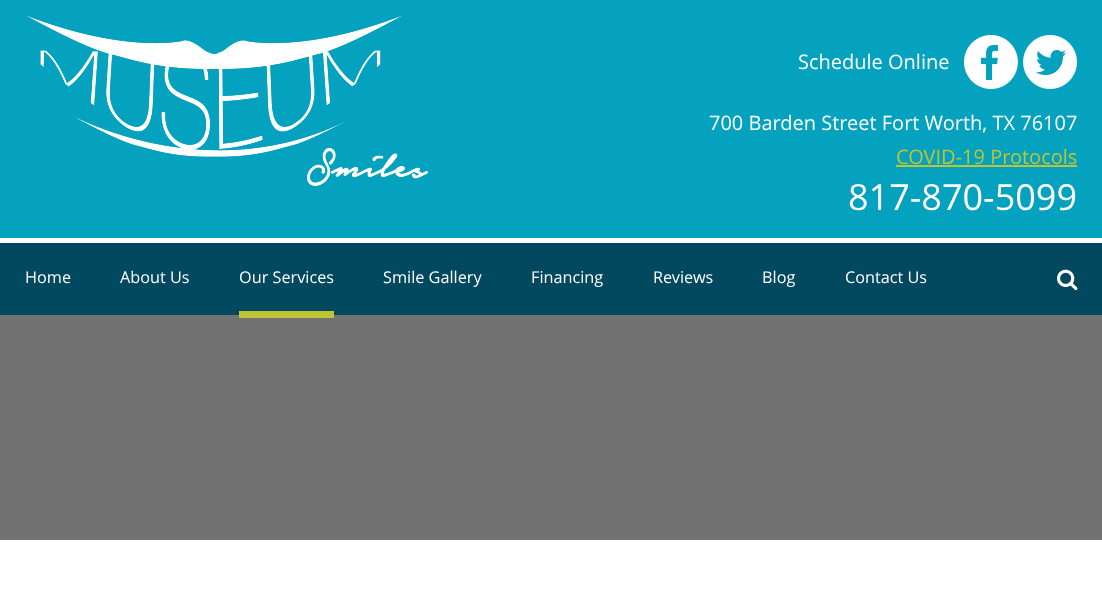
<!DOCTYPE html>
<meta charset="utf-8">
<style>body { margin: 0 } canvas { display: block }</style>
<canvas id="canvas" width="1102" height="613"></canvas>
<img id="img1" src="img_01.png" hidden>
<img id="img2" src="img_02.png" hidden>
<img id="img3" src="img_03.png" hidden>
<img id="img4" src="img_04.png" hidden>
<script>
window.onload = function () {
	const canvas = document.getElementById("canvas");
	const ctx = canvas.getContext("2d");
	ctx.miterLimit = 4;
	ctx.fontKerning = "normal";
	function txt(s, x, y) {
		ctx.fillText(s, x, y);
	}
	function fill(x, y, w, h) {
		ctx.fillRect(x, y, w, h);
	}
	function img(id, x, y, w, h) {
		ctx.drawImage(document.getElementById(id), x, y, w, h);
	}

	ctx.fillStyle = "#FFFFFF";
	fill(0, 0, 1102, 613);
	ctx.fillStyle = "#04A2BE";
	fill(0, 0, 1102, 238);
	img("img1", 25, 15, 403, 171);
	img("img2", 964, 35, 54, 54);
	img("img3", 1023, 35, 54, 54);
	ctx.fillStyle = "#C1C432";
	fill(896, 165, 181, 2);
	ctx.fillStyle = "#024960";
	fill(0, 243, 1102, 72);
	ctx.fillStyle = "#727272";
	fill(0, 315, 1102, 225);
	ctx.fillStyle = "#C1C432";
	fill(239, 311, 95, 7);
	img("img4", 1057, 269, 21, 22);
	ctx.font = "20px Open Sans";
	ctx.fillStyle = "#FFFFFF";
	txt("Schedule Online", 798, 69);
	txt("700 Barden Street Fort Worth, TX 76107", 709, 130);
	ctx.fillStyle = "#C1C432";
	txt("COVID-19 Protocols", 896, 164);
	ctx.font = "36px Open Sans";
	ctx.fillStyle = "#FFFFFF";
	txt("817-870-5099", 848, 210);
	ctx.font = "16.25px Open Sans";
	txt("Home", 25, 283);
	txt("About Us", 120, 283);
	txt("Our Services", 239, 283);
	txt("Smile Gallery", 383, 283);
	txt("Financing", 531, 283);
	txt("Reviews", 653, 283);
	txt("Blog", 762, 283);
	txt("Contact Us", 845, 283);
};
</script>
